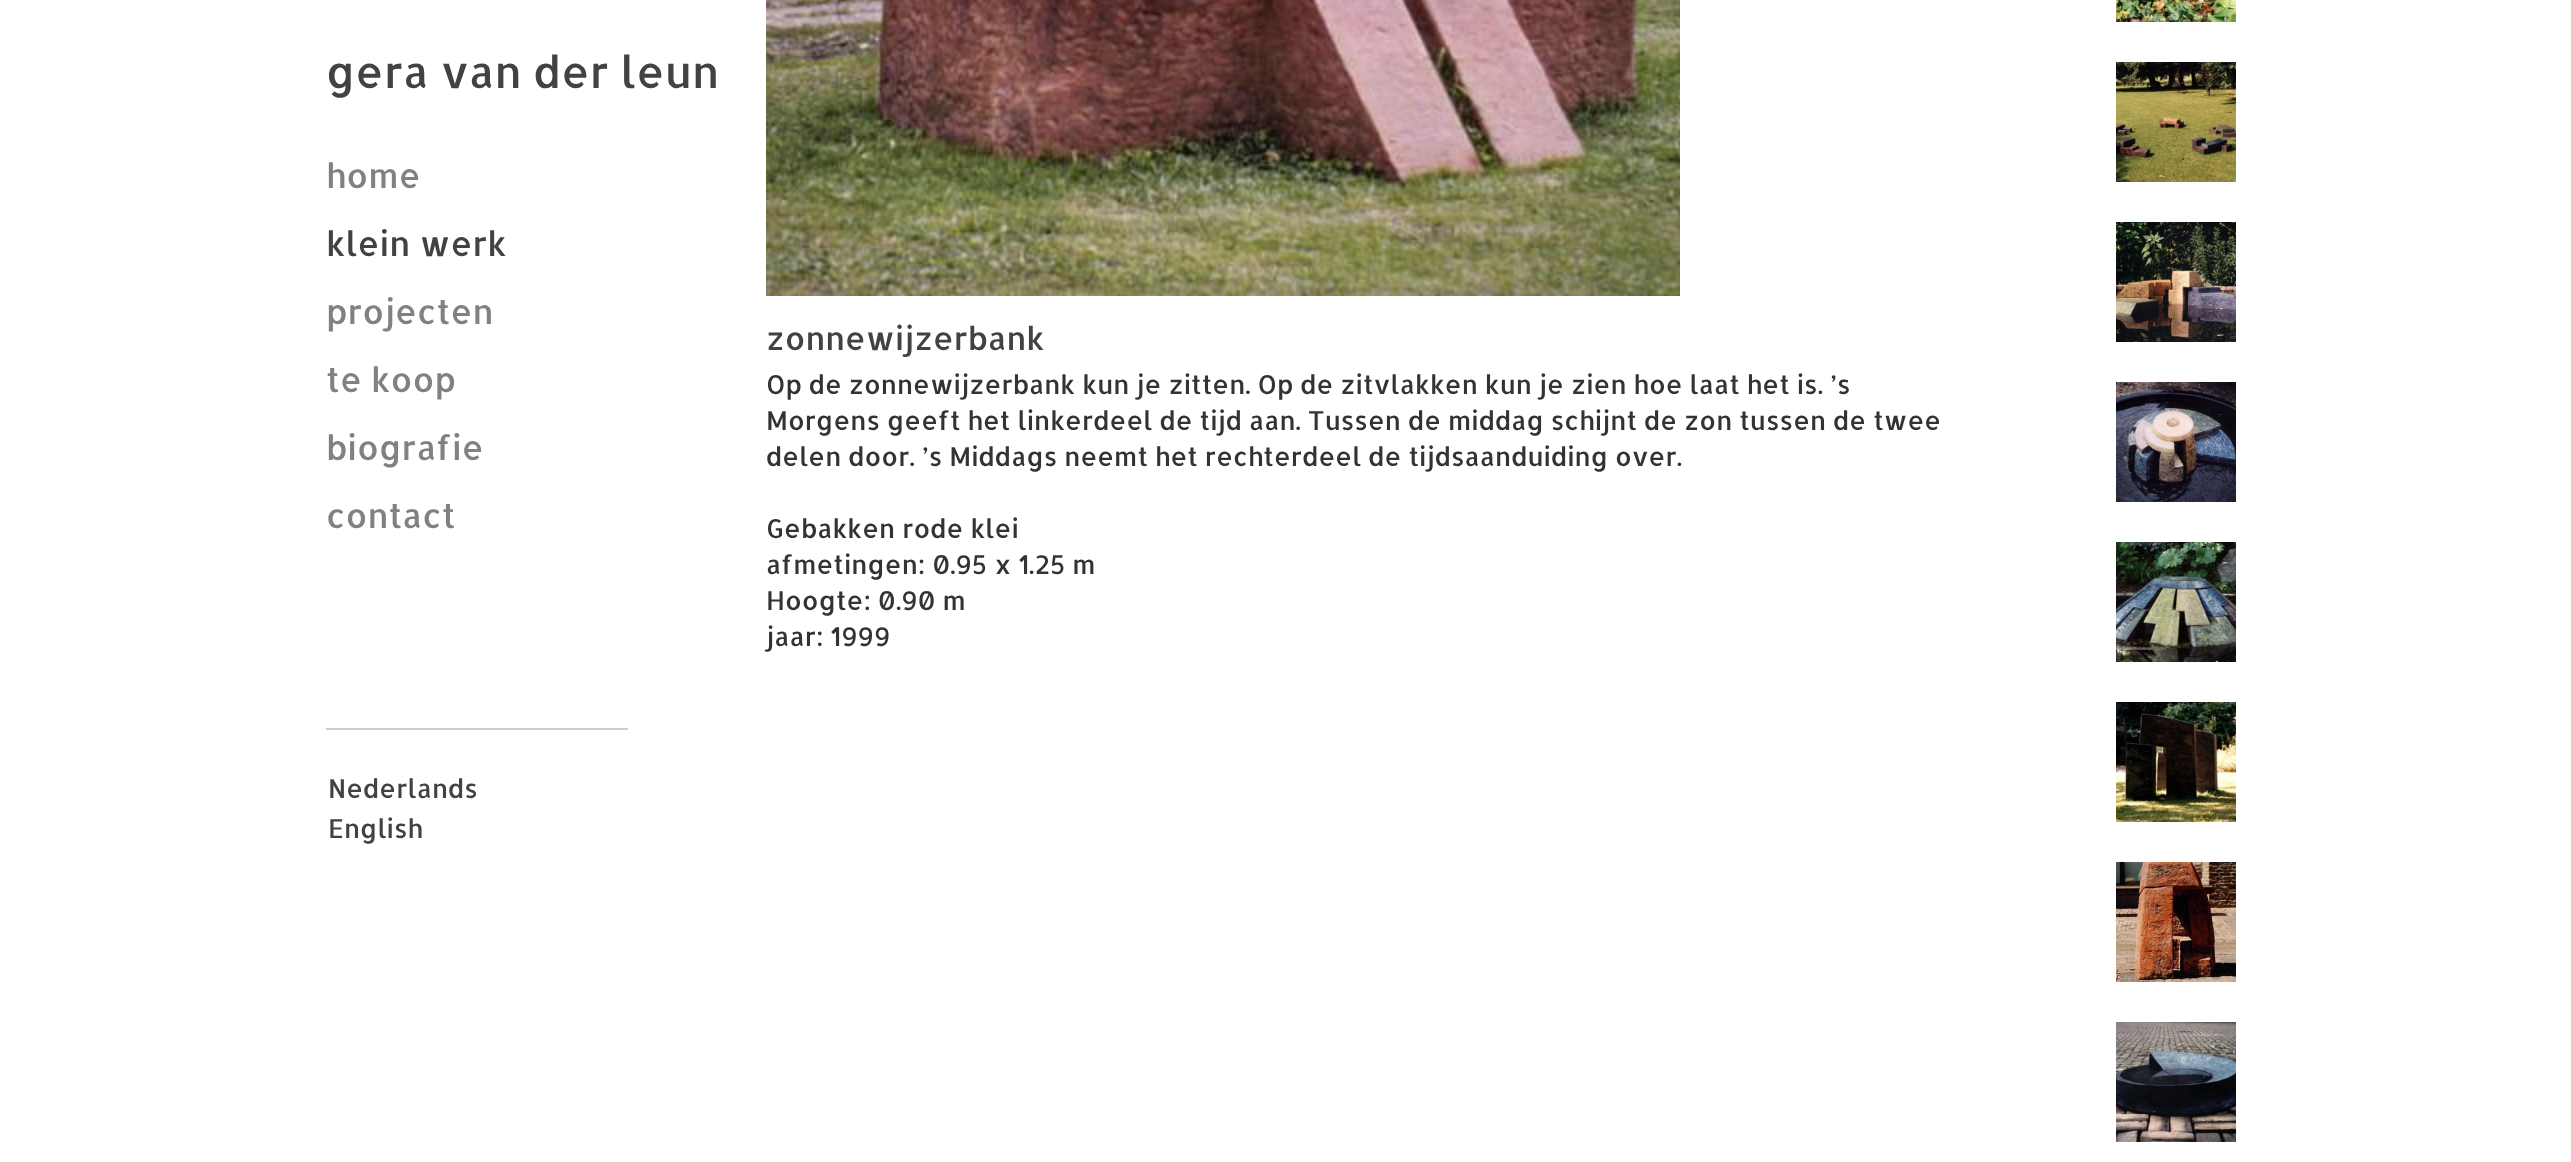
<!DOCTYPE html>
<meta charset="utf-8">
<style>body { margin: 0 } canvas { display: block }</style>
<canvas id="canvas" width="2571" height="1162"></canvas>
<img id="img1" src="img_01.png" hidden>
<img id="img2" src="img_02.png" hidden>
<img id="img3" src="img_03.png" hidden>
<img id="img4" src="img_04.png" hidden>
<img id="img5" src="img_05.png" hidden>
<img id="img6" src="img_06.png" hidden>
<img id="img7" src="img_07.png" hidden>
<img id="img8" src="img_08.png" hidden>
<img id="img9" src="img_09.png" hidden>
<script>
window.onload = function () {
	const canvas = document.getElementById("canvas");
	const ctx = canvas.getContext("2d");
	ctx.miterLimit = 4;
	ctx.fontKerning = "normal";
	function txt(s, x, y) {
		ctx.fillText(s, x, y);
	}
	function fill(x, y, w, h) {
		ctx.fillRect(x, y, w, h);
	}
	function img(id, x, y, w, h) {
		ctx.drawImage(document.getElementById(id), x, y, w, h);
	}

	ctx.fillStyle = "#FFFFFF";
	fill(0, 0, 2571, 1162);
	ctx.fillStyle = "#CDCDCD";
	fill(326, 728, 302, 2);
	img("img1", 766, 0, 914, 296);
	img("img2", 2116, 0, 120, 22);
	img("img3", 2116, 62, 120, 120);
	img("img4", 2116, 222, 120, 120);
	img("img5", 2116, 382, 120, 120);
	img("img6", 2116, 542, 120, 120);
	img("img7", 2116, 702, 120, 120);
	img("img8", 2116, 862, 120, 120);
	img("img9", 2116, 1022, 120, 120);
	ctx.font = "44px Allerta";
	ctx.fillStyle = "#424242";
	txt("gera van der leun", 326, 88);
	ctx.font = "34px Allerta";
	ctx.fillStyle = "#818181";
	txt("home", 326, 188);
	ctx.fillStyle = "#424242";
	txt("klein werk", 326, 256);
	ctx.fillStyle = "#818181";
	txt("projecten", 326, 324);
	txt("te koop", 326, 392);
	txt("biografie", 326, 460);
	txt("contact", 326, 528);
	ctx.font = "26px Allerta";
	ctx.fillStyle = "#424242";
	txt("Nederlands", 328, 798);
	txt("English", 328, 838);
	ctx.font = "32px Allerta";
	txt("zonnewijzerbank", 766, 350);
	ctx.font = "26px Allerta";
	ctx.fillStyle = "#333333";
	txt("Op de zonnewijzerbank kun je zitten. Op de zitvlakken kun je zien hoe laat het is. ’s", 766, 394);
	txt("Morgens geeft het linkerdeel de tijd aan. Tussen de middag schijnt de zon tussen de twee", 766, 430);
	txt("delen door. ’s Middags neemt het rechterdeel de tijdsaanduiding over.", 766, 466);
	txt("Gebakken rode klei", 766, 538);
	txt("afmetingen: 0.95 x 1.25 m", 766, 574);
	txt("Hoogte: 0.90 m", 766, 610);
	txt("jaar: 1999", 766, 646);
};
</script>
